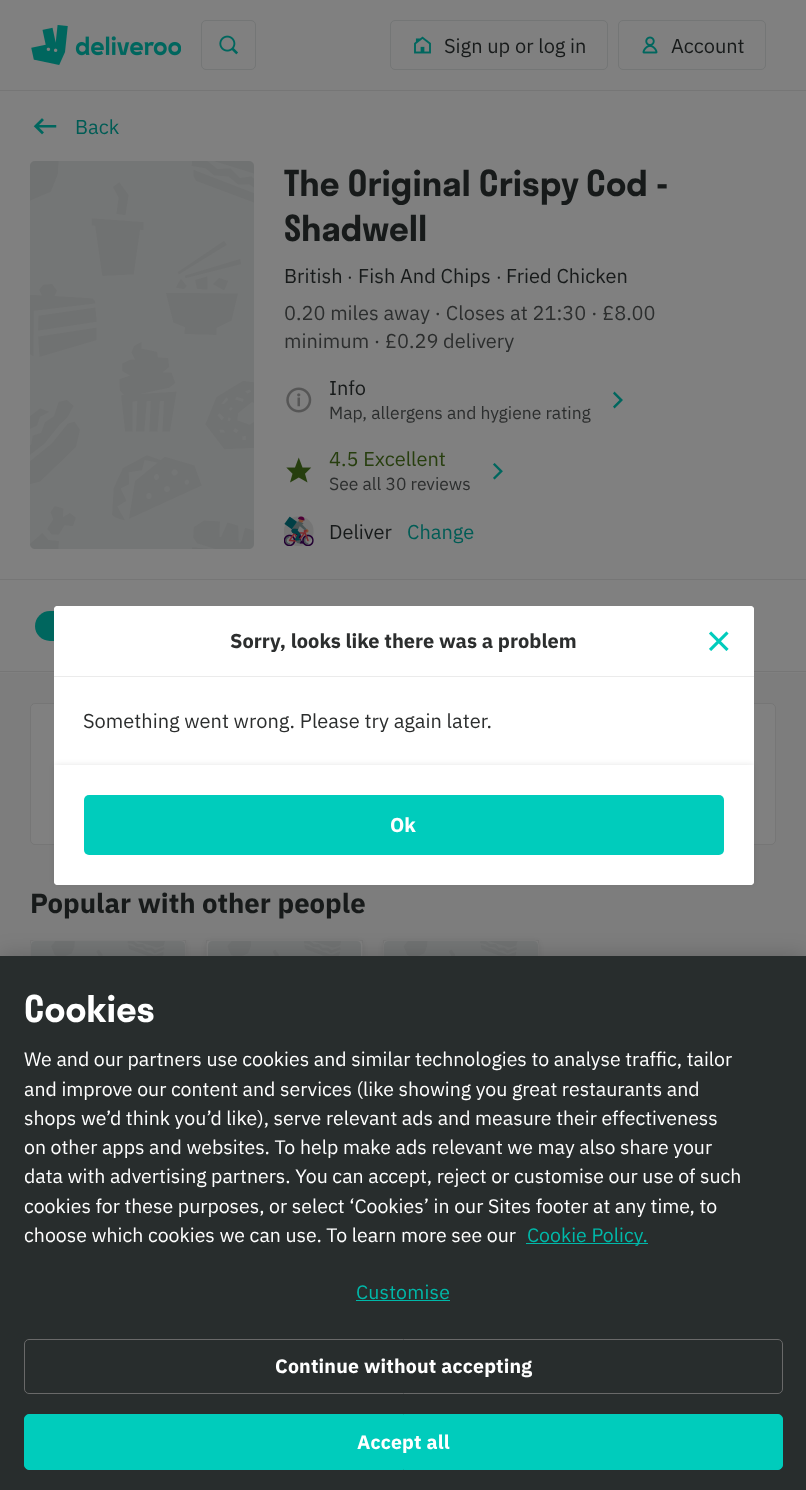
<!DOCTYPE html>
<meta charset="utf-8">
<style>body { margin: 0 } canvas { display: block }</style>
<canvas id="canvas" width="806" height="1490"></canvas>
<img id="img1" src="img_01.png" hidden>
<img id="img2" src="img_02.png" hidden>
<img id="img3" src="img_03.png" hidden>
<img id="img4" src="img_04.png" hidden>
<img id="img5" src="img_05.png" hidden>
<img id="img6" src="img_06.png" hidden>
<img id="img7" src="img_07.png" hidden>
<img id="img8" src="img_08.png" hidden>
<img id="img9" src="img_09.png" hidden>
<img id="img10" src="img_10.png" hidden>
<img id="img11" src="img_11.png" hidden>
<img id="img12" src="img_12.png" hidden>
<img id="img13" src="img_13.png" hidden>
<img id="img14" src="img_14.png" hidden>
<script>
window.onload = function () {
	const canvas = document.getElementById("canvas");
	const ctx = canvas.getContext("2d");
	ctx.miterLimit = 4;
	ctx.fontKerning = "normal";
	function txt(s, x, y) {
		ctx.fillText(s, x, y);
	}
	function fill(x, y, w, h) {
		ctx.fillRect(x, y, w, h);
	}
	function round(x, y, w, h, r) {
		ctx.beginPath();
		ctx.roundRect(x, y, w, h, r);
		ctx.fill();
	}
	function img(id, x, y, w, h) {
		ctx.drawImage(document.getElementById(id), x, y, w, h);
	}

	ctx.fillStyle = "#808080";
	fill(0, 0, 806, 1490);
	ctx.fillStyle = "#767676";
	fill(0, 90, 806, 1);
	img("img1", 31, 25, 150, 40);
	ctx.beginPath();
	ctx.roundRect(201.5, 20.5, 54, 49, 4.5);
	ctx.strokeStyle = "#747676";
	ctx.stroke();
	img("img2", 219, 35, 19, 20);
	ctx.beginPath();
	ctx.roundRect(390.5, 20.5, 217, 49, 4.5);
	ctx.stroke();
	img("img3", 414, 36, 17, 18);
	ctx.beginPath();
	ctx.roundRect(618.5, 20.5, 147, 49, 4.5);
	ctx.stroke();
	img("img4", 642, 36, 16, 18);
	fill(0, 579, 806, 1);
	img("img5", 33, 118, 24, 17);
	img("img6", 30, 161, 224, 388);
	img("img7", 286, 387, 26, 26);
	ctx.fillStyle = "#00665E";
	ctx.beginPath();
	ctx.moveTo(613, 406.5);
	ctx.lineTo(614.5, 408.5);
	ctx.lineTo(623, 400);
	ctx.lineTo(614.5, 391.5);
	ctx.lineTo(613, 393.5);
	ctx.lineTo(619.5, 400);
	ctx.closePath();
	ctx.fill();
	img("img8", 286, 457, 26, 26);
	img("img9", 493, 463, 10, 17);
	img("img10", 284, 516, 30, 30);
	ctx.fillStyle = "#767676";
	fill(0, 671, 806, 1);
	ctx.fillStyle = "#00665E";
	round(35, 611, 179, 30, 15);
	ctx.fillStyle = "#7D7D7D";
	fill(0, 673, 806, 283);
	ctx.save();
	ctx.beginPath();
	ctx.roundRect(30, 703, 746, 152, 4);
	ctx.clip();
	ctx.fillStyle = "#808080";
	round(30, 703, 746, 142, 5);
	ctx.restore();
	ctx.beginPath();
	ctx.roundRect(30.5, 703.5, 745, 141, 4.5);
	ctx.strokeStyle = "rgba(0, 0, 0, 0.08)";
	ctx.stroke();
	ctx.save();
	ctx.beginPath();
	ctx.roundRect(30, 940, 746, 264, 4);
	ctx.clip();
	ctx.fillStyle = "rgba(0, 0, 0, 0.08)";
	ctx.filter = "blur(2.5px)";
	ctx.beginPath();
	ctx.roundRect(30, 941, 156, 254, 5);
	ctx.fill();
	ctx.filter = "none";
	ctx.restore();
	ctx.fillStyle = "#808080";
	round(30, 940, 156, 254, 5);
	ctx.strokeStyle = "rgba(0, 0, 0, 0.04)";
	ctx.strokeRect(30.5, 940.5, 155, 253);
	img("img11", 31, 941, 154, 15);
	ctx.fillStyle = "rgba(0, 0, 0, 0.08)";
	ctx.filter = "blur(2.5px)";
	ctx.beginPath();
	ctx.roundRect(206, 941, 157, 254, 5);
	ctx.fill();
	ctx.filter = "none";
	ctx.fillStyle = "#808080";
	round(206, 940, 157, 254, 5);
	ctx.strokeRect(206.5, 940.5, 156, 253);
	img("img12", 208, 941, 153, 15);
	ctx.fillStyle = "rgba(0, 0, 0, 0.08)";
	ctx.filter = "blur(2.5px)";
	ctx.beginPath();
	ctx.roundRect(383, 941, 156, 254, 5);
	ctx.fill();
	ctx.filter = "none";
	ctx.fillStyle = "#808080";
	round(383, 940, 156, 254, 5);
	ctx.strokeRect(383.5, 940.5, 155, 253);
	img("img13", 384, 941, 154, 15);
	ctx.fillStyle = "#FFFFFF";
	round(54, 606, 700, 279, 4);
	ctx.beginPath();
	ctx.roundRect(54, 606, 700, 72, [4, 4, 0, 0]);
	ctx.fill();
	ctx.fillStyle = "#EBEBEB";
	fill(54, 676, 700, 1);
	img("img14", 709, 631, 20, 20);
	ctx.fillStyle = "rgba(0, 0, 0, 0.08)";
	ctx.filter = "blur(2.5px)";
	ctx.beginPath();
	ctx.roundRect(54, 764, 700, 120, 4);
	ctx.fill();
	ctx.filter = "none";
	ctx.fillStyle = "#FFFFFF";
	ctx.beginPath();
	ctx.roundRect(54, 765, 700, 120, [0, 0, 4, 4]);
	ctx.fill();
	ctx.fillStyle = "#00CCBC";
	round(84, 795, 640, 60, 5);
	ctx.fillStyle = "rgba(0, 0, 0, 0.2)";
	ctx.filter = "blur(11px)";
	ctx.beginPath();
	ctx.rect(0, 956, 806, 534);
	ctx.fill();
	ctx.filter = "none";
	ctx.fillStyle = "#282D2D";
	fill(0, 956, 806, 534);
	ctx.fillStyle = "#00B8A9";
	fill(526, 1243, 122, 1);
	fill(356, 1300, 94, 1);
	ctx.beginPath();
	ctx.roundRect(24.5, 1339.5, 758, 54, 4.5);
	ctx.strokeStyle = "#696969";
	ctx.stroke();
	ctx.fillStyle = "#00CCBC";
	ctx.beginPath();
	ctx.roundRect(24.5, 1414.5, 758, 55, 4.5);
	ctx.fill();
	ctx.strokeStyle = "#00CCBC";
	ctx.stroke();
	ctx.font = "20px IBM Plex Sans";
	ctx.fillStyle = "#171A1A";
	txt("Sign up or log in", 444, 53);
	txt("Account", 671, 53);
	ctx.fillStyle = "#005C55";
	txt("Back", 75, 134);
	ctx.font = "600 35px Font";
	ctx.fillStyle = "#171A1A";
	txt("The Original Crispy Cod -", 284, 196);
	txt("Shadwell", 284, 241);
	ctx.font = "20px IBM Plex Sans";
	txt("British", 284, 283);
	ctx.font = "17.5px IBM Plex Sans";
	txt("·", 347, 283);
	ctx.font = "20px IBM Plex Sans";
	txt("Fish And Chips", 358, 283);
	ctx.font = "17.5px IBM Plex Sans";
	txt("·", 496, 283);
	ctx.font = "20px IBM Plex Sans";
	txt("Fried Chicken", 506, 283);
	ctx.fillStyle = "#2C2E2E";
	txt("0.20 miles away · Closes at 21:30 · £8.00", 284, 320);
	txt("minimum · £0.29 delivery", 284, 348);
	ctx.fillStyle = "#171A1A";
	txt("Info", 329, 395);
	ctx.font = "17.5px IBM Plex Sans";
	ctx.fillStyle = "#2C2E2E";
	txt("Map, allergens and hygiene rating", 329, 419);
	ctx.font = "20px IBM Plex Sans";
	ctx.fillStyle = "#273E0E";
	txt("4.5 Excellent", 329, 466);
	ctx.font = "17.5px IBM Plex Sans";
	ctx.fillStyle = "#2C2E2E";
	txt("See all 30 reviews", 329, 490);
	ctx.font = "20px IBM Plex Sans";
	ctx.fillStyle = "#171A1A";
	txt("Deliver", 329, 539);
	ctx.fillStyle = "#005C55";
	txt("Change", 407, 539);
	ctx.font = "bold 27.5px IBM Plex Sans";
	ctx.fillStyle = "#171A1A";
	txt("Popular with other people", 30, 913);
	ctx.font = "bold 20px IBM Plex Sans";
	ctx.fillStyle = "#2C2E2E";
	txt("Sorry, looks like there was a problem", 230, 648);
	ctx.font = "20px IBM Plex Sans";
	txt("Something went wrong. Please try again later.", 83, 728);
	ctx.font = "bold 20px IBM Plex Sans";
	ctx.fillStyle = "#FFFFFF";
	txt("Ok", 390, 832);
	ctx.font = "600 36px Font";
	txt("Cookies", 24, 1022);
	ctx.font = "19.5px IBM Plex Sans";
	txt("We and our partners use cookies and similar technologies to analyse traffic, tailor", 24, 1066);
	txt("and improve our content and services (like showing you great restaurants and", 24, 1096);
	txt("shops we’d think you’d like), serve relevant ads and measure their effectiveness", 24, 1125);
	txt("on other apps and websites. To help make ads relevant we may also share your", 24, 1154);
	txt("data with advertising partners. You can accept, reject or customise our use of such", 24, 1183);
	txt("cookies for these purposes, or select ‘Cookies’ in our Sites footer at any time, to", 24, 1213);
	txt("choose which cookies we can use. To learn more see our", 24, 1242);
	ctx.fillStyle = "#00B8A9";
	txt("Cookie Policy.", 527, 1242);
	ctx.letterSpacing = "0.2px";
	txt("Customise", 356, 1299);
	ctx.font = "bold 19.5px IBM Plex Sans";
	ctx.fillStyle = "#FFFFFF";
	txt("Continue without accepting", 275, 1373);
	txt("Accept all", 357, 1449);
};
</script>
